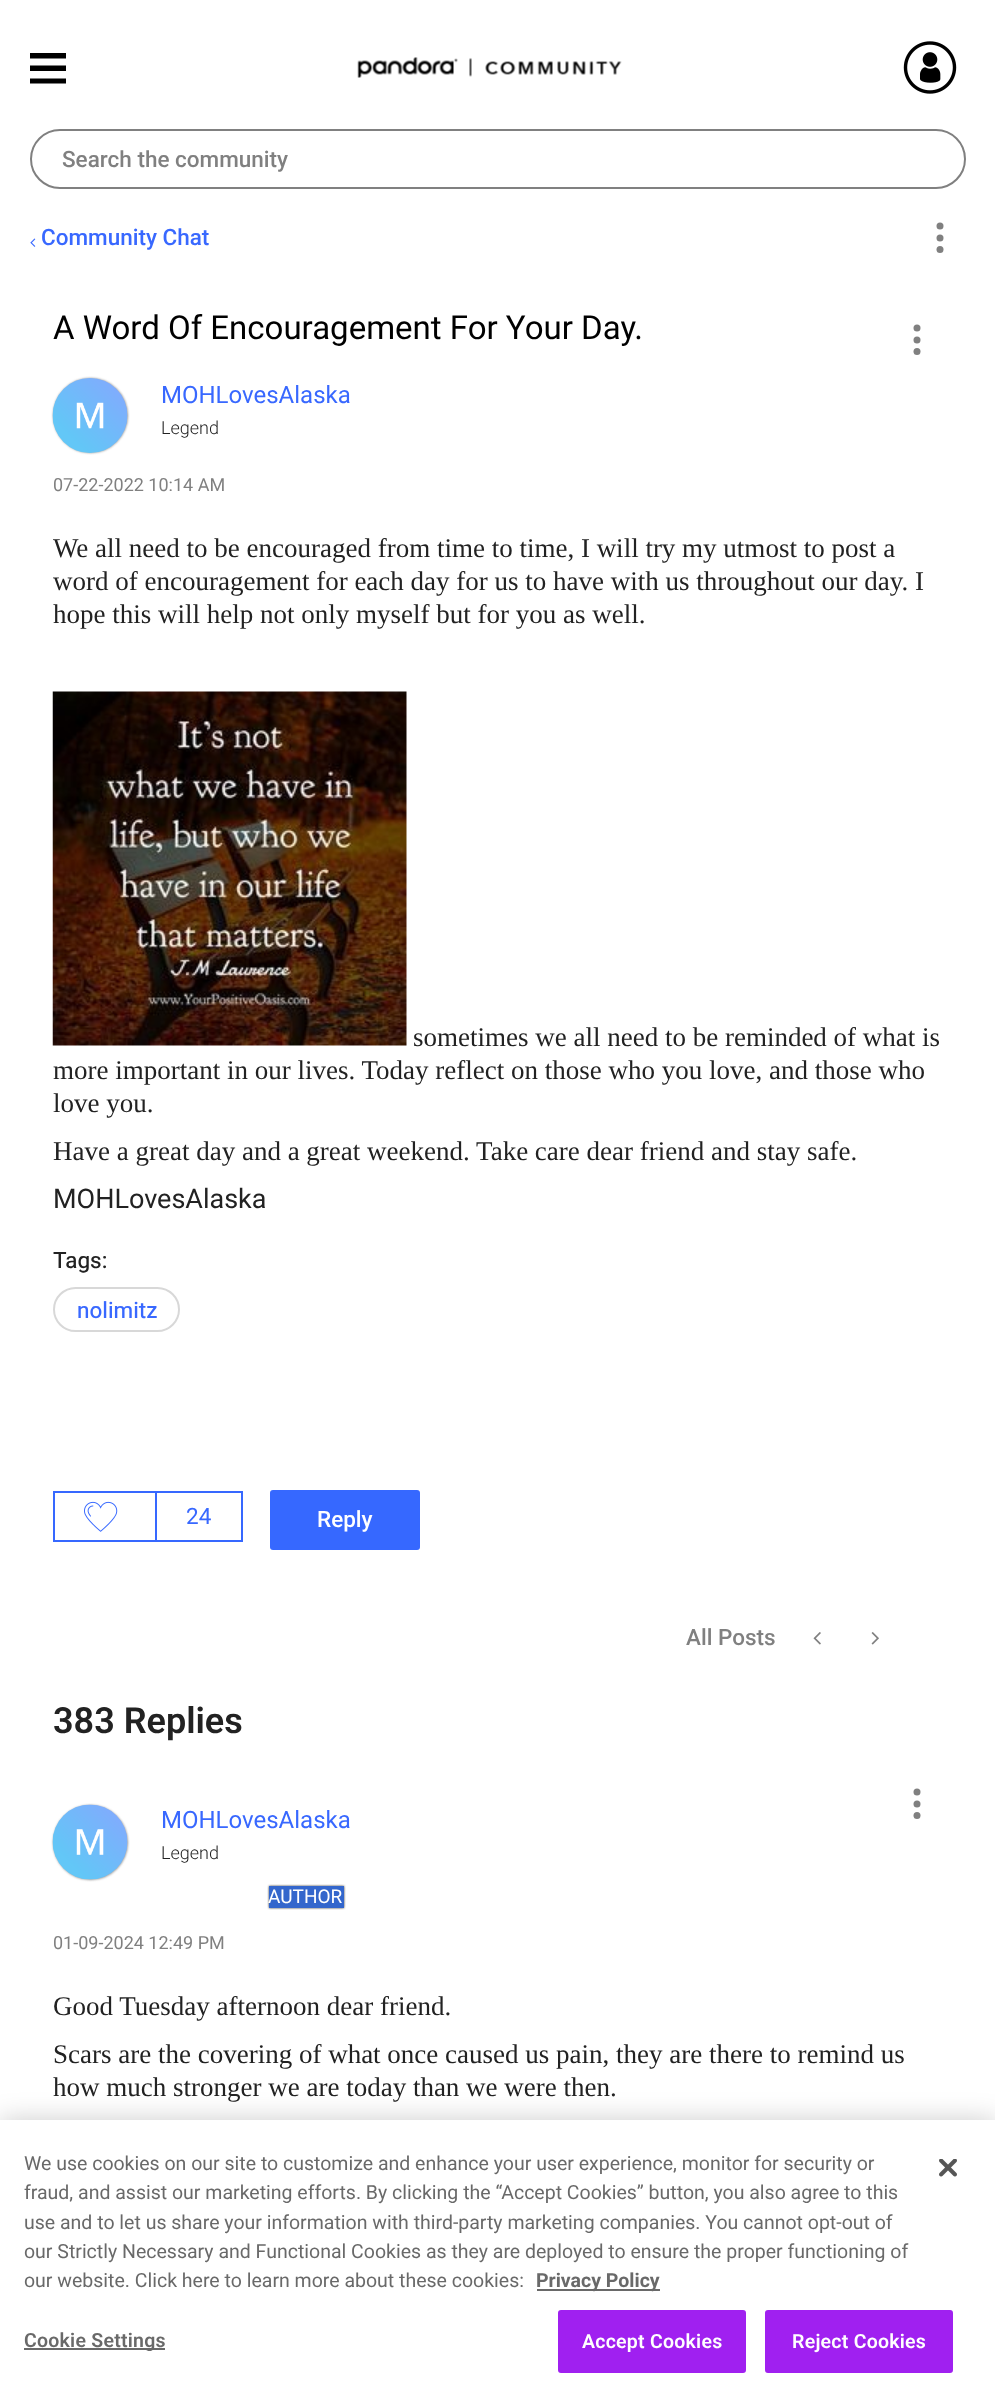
<!DOCTYPE html>
<meta charset="utf-8">
<style>body { margin: 0 } canvas { display: block }</style>
<canvas id="canvas" width="995" height="2393"></canvas>
<img id="img1" src="img_01.png" hidden>
<img id="img2" src="img_02.png" hidden>
<img id="img3" src="img_03.png" hidden>
<img id="img4" src="img_04.png" hidden>
<img id="img5" src="img_05.png" hidden>
<img id="img6" src="img_06.png" hidden>
<img id="img7" src="img_07.png" hidden>
<img id="img8" src="img_08.png" hidden>
<img id="img9" src="img_09.png" hidden>
<img id="img10" src="img_10.png" hidden>
<script>
window.onload = function () {
	const canvas = document.getElementById("canvas");
	const ctx = canvas.getContext("2d");
	ctx.miterLimit = 4;
	ctx.fontKerning = "normal";
	function txt(s, x, y) {
		ctx.fillText(s, x, y);
	}
	function fill(x, y, w, h) {
		ctx.fillRect(x, y, w, h);
	}
	function round(x, y, w, h, r) {
		ctx.beginPath();
		ctx.roundRect(x, y, w, h, r);
		ctx.fill();
	}
	function img(id, x, y, w, h) {
		ctx.drawImage(document.getElementById(id), x, y, w, h);
	}

	ctx.fillStyle = "#FFFFFF";
	fill(0, 0, 995, 2393);
	ctx.fillStyle = "#000000";
	ctx.beginPath();
	ctx.moveTo(30, 53);
	ctx.lineTo(66, 53);
	ctx.lineTo(66, 58.5);
	ctx.lineTo(30, 58.5);
	ctx.closePath();
	ctx.moveTo(30, 65.5);
	ctx.lineTo(66, 65.5);
	ctx.lineTo(66, 71);
	ctx.lineTo(30, 71);
	ctx.closePath();
	ctx.moveTo(30, 78.5);
	ctx.lineTo(66, 78.5);
	ctx.lineTo(66, 83.5);
	ctx.lineTo(30, 83.5);
	ctx.closePath();
	ctx.fill("evenodd");
	img("img1", 357, 57, 265, 21);
	img("img2", 903, 41, 54, 53);
	ctx.beginPath();
	ctx.roundRect(31, 130, 934, 58, 29);
	ctx.strokeStyle = "#808080";
	ctx.lineWidth = 2;
	ctx.stroke();
	img("img3", 30, 238, 6, 9);
	ctx.fillStyle = "#808080";
	ctx.beginPath();
	ctx.arc(940, 226, 3.5, 0, Math.PI * 2);
	ctx.fill();
	ctx.beginPath();
	ctx.arc(940, 238, 3.5, 0, Math.PI * 2);
	ctx.fill();
	ctx.beginPath();
	ctx.arc(940, 249.5, 3.5, 0, Math.PI * 2);
	ctx.fill();
	ctx.fillStyle = "#999999";
	ctx.filter = "blur(1px)";
	ctx.beginPath();
	ctx.roundRect(53, 378, 75, 75, 37.5);
	ctx.fill();
	ctx.filter = "none";
	img("img4", 52, 378, 76, 75);
	ctx.fillStyle = "#808080";
	ctx.beginPath();
	ctx.arc(917, 328, 3.5, 0, Math.PI * 2);
	ctx.fill();
	ctx.beginPath();
	ctx.arc(917, 340, 3.5, 0, Math.PI * 2);
	ctx.fill();
	ctx.beginPath();
	ctx.arc(917, 351.5, 3.5, 0, Math.PI * 2);
	ctx.fill();
	img("img5", 52, 691, 355, 355);
	ctx.beginPath();
	ctx.roundRect(54, 1288, 125, 43, 21.5);
	ctx.strokeStyle = "#D8D8D8";
	ctx.stroke();
	ctx.strokeStyle = "#3668FF";
	ctx.strokeRect(54, 1492, 188, 49);
	img("img6", 84, 1501, 34, 31);
	ctx.fillStyle = "#3668FF";
	fill(155, 1493, 2, 48);
	round(270, 1490, 150, 60, 3);
	img("img7", 813, 1632, 8, 13);
	img("img8", 871, 1632, 8, 13);
	ctx.fillStyle = "#808080";
	ctx.beginPath();
	ctx.arc(917, 1792, 3.5, 0, Math.PI * 2);
	ctx.fill();
	ctx.beginPath();
	ctx.arc(917, 1804, 3.5, 0, Math.PI * 2);
	ctx.fill();
	ctx.beginPath();
	ctx.arc(917, 1815.5, 3.5, 0, Math.PI * 2);
	ctx.fill();
	ctx.fillStyle = "#999999";
	ctx.filter = "blur(1px)";
	ctx.beginPath();
	ctx.roundRect(53, 1805, 75, 75, 37.5);
	ctx.fill();
	ctx.filter = "none";
	img("img9", 52, 1804, 76, 76);
	ctx.fillStyle = "#333333";
	ctx.filter = "blur(1px)";
	ctx.beginPath();
	ctx.rect(269, 1886, 75, 22);
	ctx.fill();
	ctx.filter = "none";
	ctx.fillStyle = "#3366CC";
	fill(269, 1886, 75, 22);
	ctx.fillStyle = "rgba(0, 0, 0, 0.2)";
	ctx.filter = "blur(13.5px)";
	ctx.beginPath();
	ctx.rect(0, 2120, 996, 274);
	ctx.fill();
	ctx.filter = "none";
	ctx.fillStyle = "#FFFFFF";
	fill(0, 2120, 995, 273);
	ctx.fillStyle = "#696969";
	fill(537, 2289, 123, 2);
	fill(24, 2348, 141, 2);
	ctx.fillStyle = "#A020F0";
	ctx.beginPath();
	ctx.roundRect(559, 2311, 186, 61, 2);
	ctx.fill();
	ctx.strokeStyle = "#A020F0";
	ctx.stroke();
	ctx.beginPath();
	ctx.roundRect(766, 2311, 186, 61, 2);
	ctx.fill();
	ctx.stroke();
	img("img10", 939, 2159, 18, 18);
	ctx.font = "500 22.5px Roboto";
	ctx.fillStyle = "#808080";
	txt("Search the community", 62, 167);
	ctx.fillStyle = "#3868FF";
	txt("Community Chat", 41, 245);
	ctx.font = "33px Roboto";
	ctx.fillStyle = "#000000";
	txt("A Word Of Encouragement For Your Day.", 53, 339);
	ctx.font = "24px Roboto";
	ctx.fillStyle = "#3868FF";
	txt("MOHLovesAlaska", 161, 403);
	ctx.font = "300 18px Roboto";
	ctx.fillStyle = "#222222";
	txt("Legend", 161, 434);
	ctx.font = "18px Roboto";
	ctx.fillStyle = "#808080";
	txt("07-22-2022 10:14 AM", 53, 491);
	ctx.font = "27px Liberation Serif";
	ctx.fillStyle = "#222222";
	txt("We all need to be encouraged from time to time, I will try my utmost to post a", 53, 557);
	txt("word of encouragement for each day for us to have with us throughout our day. I", 53, 590);
	txt("hope this will help not only myself but for you as well.", 53, 623);
	txt("sometimes we all need to be reminded of what is", 413, 1046);
	txt("more important in our lives. Today reflect on those who you love, and those who", 53, 1079);
	txt("love you.", 53, 1112);
	txt("Have a great day and a great weekend. Take care dear friend and stay safe.", 53, 1160);
	ctx.font = "27px Roboto";
	txt("MOHLovesAlaska", 53, 1208);
	ctx.font = "22.5px 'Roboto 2'";
	txt("Tags:", 53, 1268);
	ctx.fillStyle = "#3868FF";
	txt("nolimitz", 77, 1318);
	ctx.font = "22.5px Roboto";
	txt("24", 186, 1524);
	ctx.font = "500 22.5px Roboto";
	ctx.fillStyle = "#FFFFFF";
	txt("Reply", 317, 1527);
	ctx.fillStyle = "#808080";
	txt("All Posts", 686, 1645);
	ctx.font = "600 36px Roboto";
	ctx.fillStyle = "#222222";
	txt("383 Replies", 53, 1733);
	ctx.font = "24px Roboto";
	ctx.fillStyle = "#3868FF";
	txt("MOHLovesAlaska", 161, 1828);
	ctx.font = "300 18px Roboto";
	ctx.fillStyle = "#222222";
	txt("Legend", 161, 1859);
	ctx.font = "19px Roboto";
	ctx.fillStyle = "#FFFFFF";
	txt("AUTHOR", 268, 1903);
	ctx.font = "18px Roboto";
	ctx.fillStyle = "#808080";
	txt("01-09-2024 12:49 PM", 53, 1949);
	ctx.font = "27px Liberation Serif";
	ctx.fillStyle = "#222222";
	txt("Good Tuesday afternoon dear friend.", 53, 2015);
	txt("Scars are the covering of what once caused us pain, they are there to remind us", 53, 2063);
	txt("how much stronger we are today than we were then.", 53, 2096);
	ctx.font = "19.5px Roboto";
	ctx.fillStyle = "#696969";
	txt("We use cookies on our site to customize and enhance your user experience, monitor for security or", 24, 2170);
	txt("fraud, and assist our marketing efforts. By clicking the “Accept Cookies” button, you also agree to this", 24, 2199);
	txt("use and to let us share your information with third-party marketing companies. You cannot opt-out of", 24, 2229);
	txt("our Strictly Necessary and Functional Cookies as they are deployed to ensure the proper functioning of", 24, 2258);
	txt("our website. Click here to learn more about these cookies:", 24, 2287);
	ctx.font = "bold 19.5px Roboto";
	txt("Privacy Policy", 536, 2287);
	ctx.letterSpacing = "0.25px";
	ctx.font = "600 19.5px Roboto";
	txt("Cookie Settings", 24, 2347);
	ctx.fillStyle = "#FFFFFF";
	txt("Accept Cookies", 582, 2348);
	txt("Reject Cookies", 792, 2348);
};
</script>
